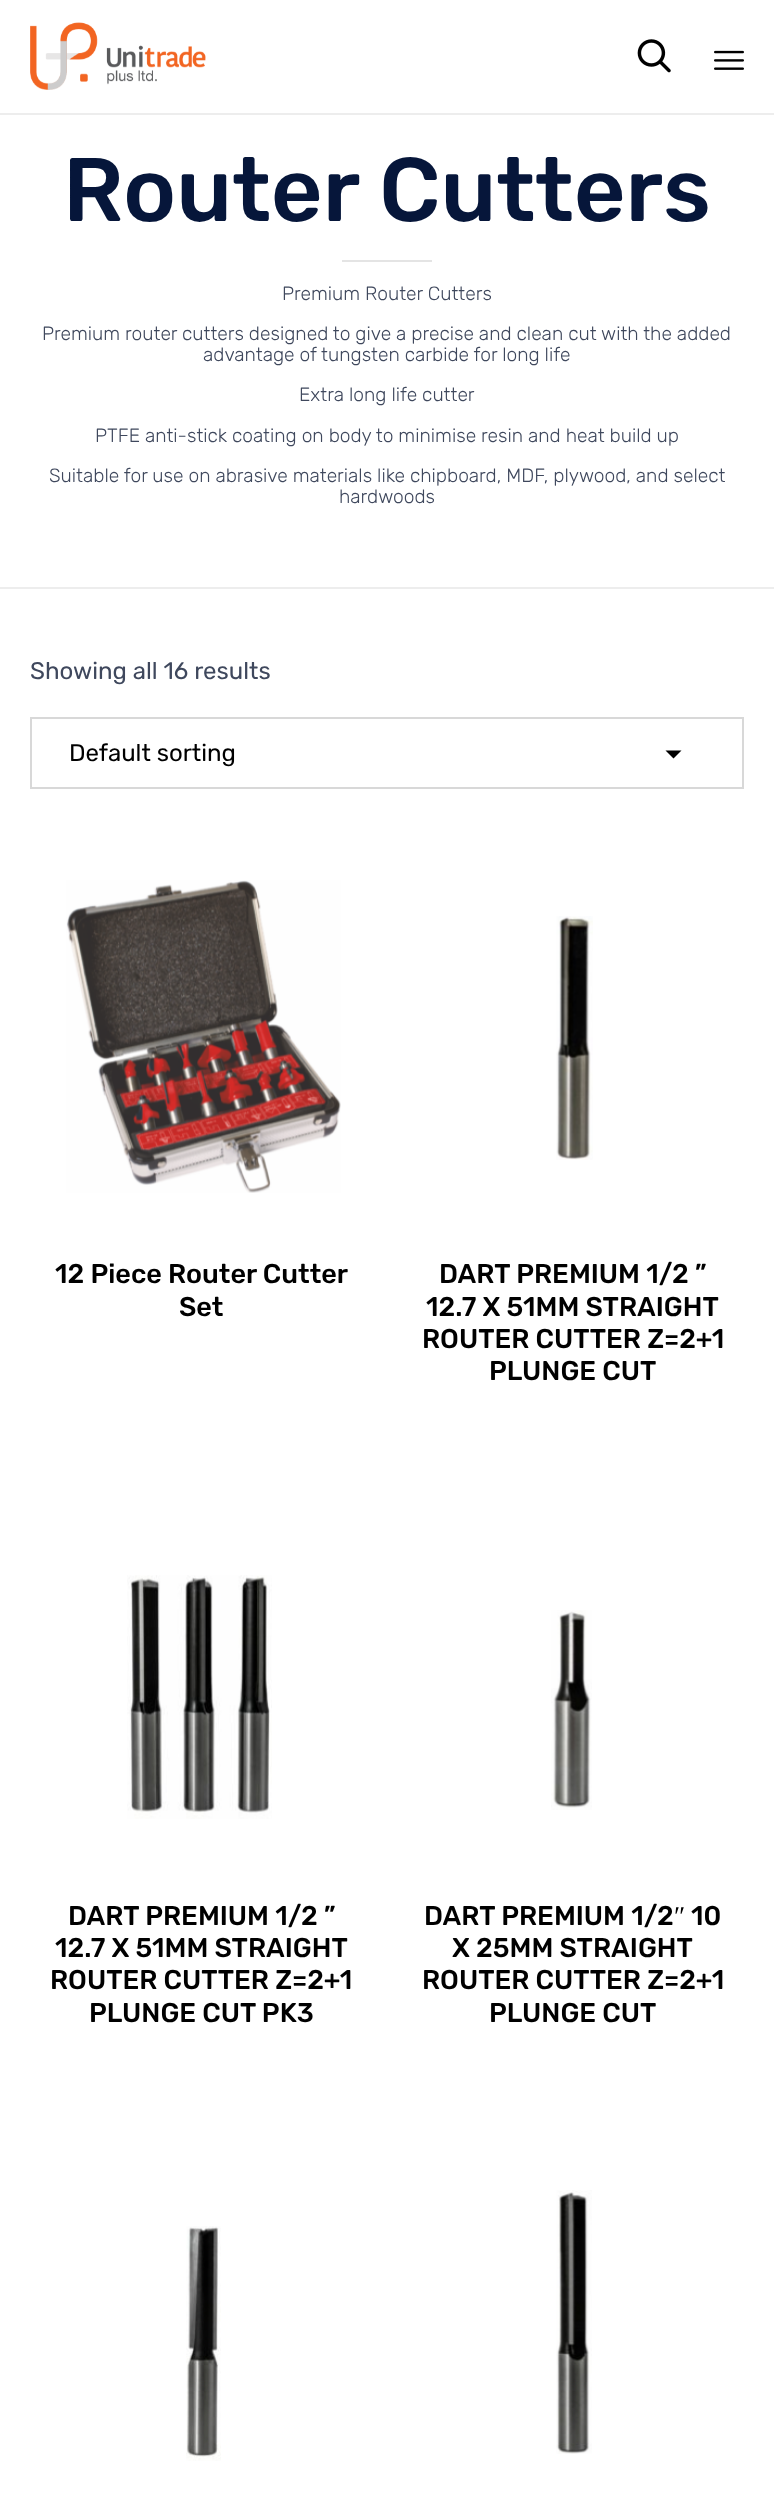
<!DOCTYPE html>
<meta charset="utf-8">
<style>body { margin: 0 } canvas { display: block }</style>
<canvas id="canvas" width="774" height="2513"></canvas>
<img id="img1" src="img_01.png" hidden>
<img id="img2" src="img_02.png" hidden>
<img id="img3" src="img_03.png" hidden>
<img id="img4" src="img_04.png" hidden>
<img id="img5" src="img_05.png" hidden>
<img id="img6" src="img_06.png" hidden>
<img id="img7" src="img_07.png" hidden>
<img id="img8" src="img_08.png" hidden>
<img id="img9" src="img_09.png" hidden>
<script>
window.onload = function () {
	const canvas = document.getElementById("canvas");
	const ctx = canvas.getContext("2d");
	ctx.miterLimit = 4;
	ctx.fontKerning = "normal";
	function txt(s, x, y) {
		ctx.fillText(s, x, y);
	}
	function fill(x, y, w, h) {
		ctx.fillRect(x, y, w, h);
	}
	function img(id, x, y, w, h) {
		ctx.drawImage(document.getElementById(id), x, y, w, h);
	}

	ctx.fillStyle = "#FFFFFF";
	fill(0, 0, 774, 2513);
	ctx.fillStyle = "#EDEDED";
	fill(0, 113, 774, 2);
	img("img1", 30, 22, 176, 68);
	img("img2", 637, 39, 34, 34);
	img("img3", 714, 50, 30, 20);
	fill(0, 587, 774, 2);
	ctx.fillStyle = "#E4E4E4";
	fill(342, 260, 90, 2);
	ctx.fillStyle = "#000000";
	ctx.beginPath();
	ctx.moveTo(665.5, 750.5);
	ctx.lineTo(673.5, 758.5);
	ctx.lineTo(681.5, 750.5);
	ctx.closePath();
	ctx.fill();
	ctx.strokeStyle = "#D8D8D8";
	ctx.lineWidth = 2;
	ctx.strokeRect(31, 718, 712, 70);
	img("img4", 66, 880, 275, 313);
	img("img5", 556, 916, 37, 244);
	img("img6", 127, 1575, 145, 244);
	img("img7", 551, 1610, 41, 200);
	img("img8", 186, 2226, 35, 235);
	img("img9", 556, 2190, 36, 264);
	ctx.font = "500 90px Rubik";
	ctx.fillStyle = "#06163A";
	txt("Router Cutters", 63, 221);
	ctx.font = "300 19.2px Rubik";
	ctx.fillStyle = "#3F485D";
	txt("Premium Router Cutters", 282, 300);
	txt("Premium router cutters designed to give a precise and clean cut with the added", 42, 340);
	txt("advantage of tungsten carbide for long life", 203, 361);
	txt("Extra long life cutter", 299, 401);
	txt("PTFE anti-stick coating on body to minimise resin and heat build up", 95, 442);
	txt("Suitable for use on abrasive materials like chipboard, MDF, plywood, and select", 49, 482);
	txt("hardwoods", 339, 503);
	ctx.font = "24px Rubik";
	txt("Showing all 16 results", 30, 679);
	ctx.fillStyle = "#000000";
	txt("Default sorting", 69, 761);
	ctx.font = "500 27px Rubik";
	txt("12 Piece Router Cutter", 55, 1283);
	txt("Set", 179, 1316);
	txt("DART PREMIUM 1/2 ”", 439, 1283);
	txt("12.7 X 51MM STRAIGHT", 426, 1316);
	txt("ROUTER CUTTER Z=2+1", 422, 1348);
	txt("PLUNGE CUT", 489, 1380);
	txt("DART PREMIUM 1/2 ”", 68, 1925);
	txt("12.7 X 51MM STRAIGHT", 55, 1957);
	txt("ROUTER CUTTER Z=2+1", 50, 1989);
	txt("PLUNGE CUT PK3", 89, 2022);
	txt("DART PREMIUM 1/2", 424, 1925);
	ctx.font = "27px Liberation Serif";
	txt("″", 674, 1925);
	ctx.font = "500 27px Rubik";
	txt("10", 691, 1925);
	txt("X 25MM STRAIGHT", 452, 1957);
	txt("ROUTER CUTTER Z=2+1", 422, 1989);
	txt("PLUNGE CUT", 489, 2022);
};
</script>
